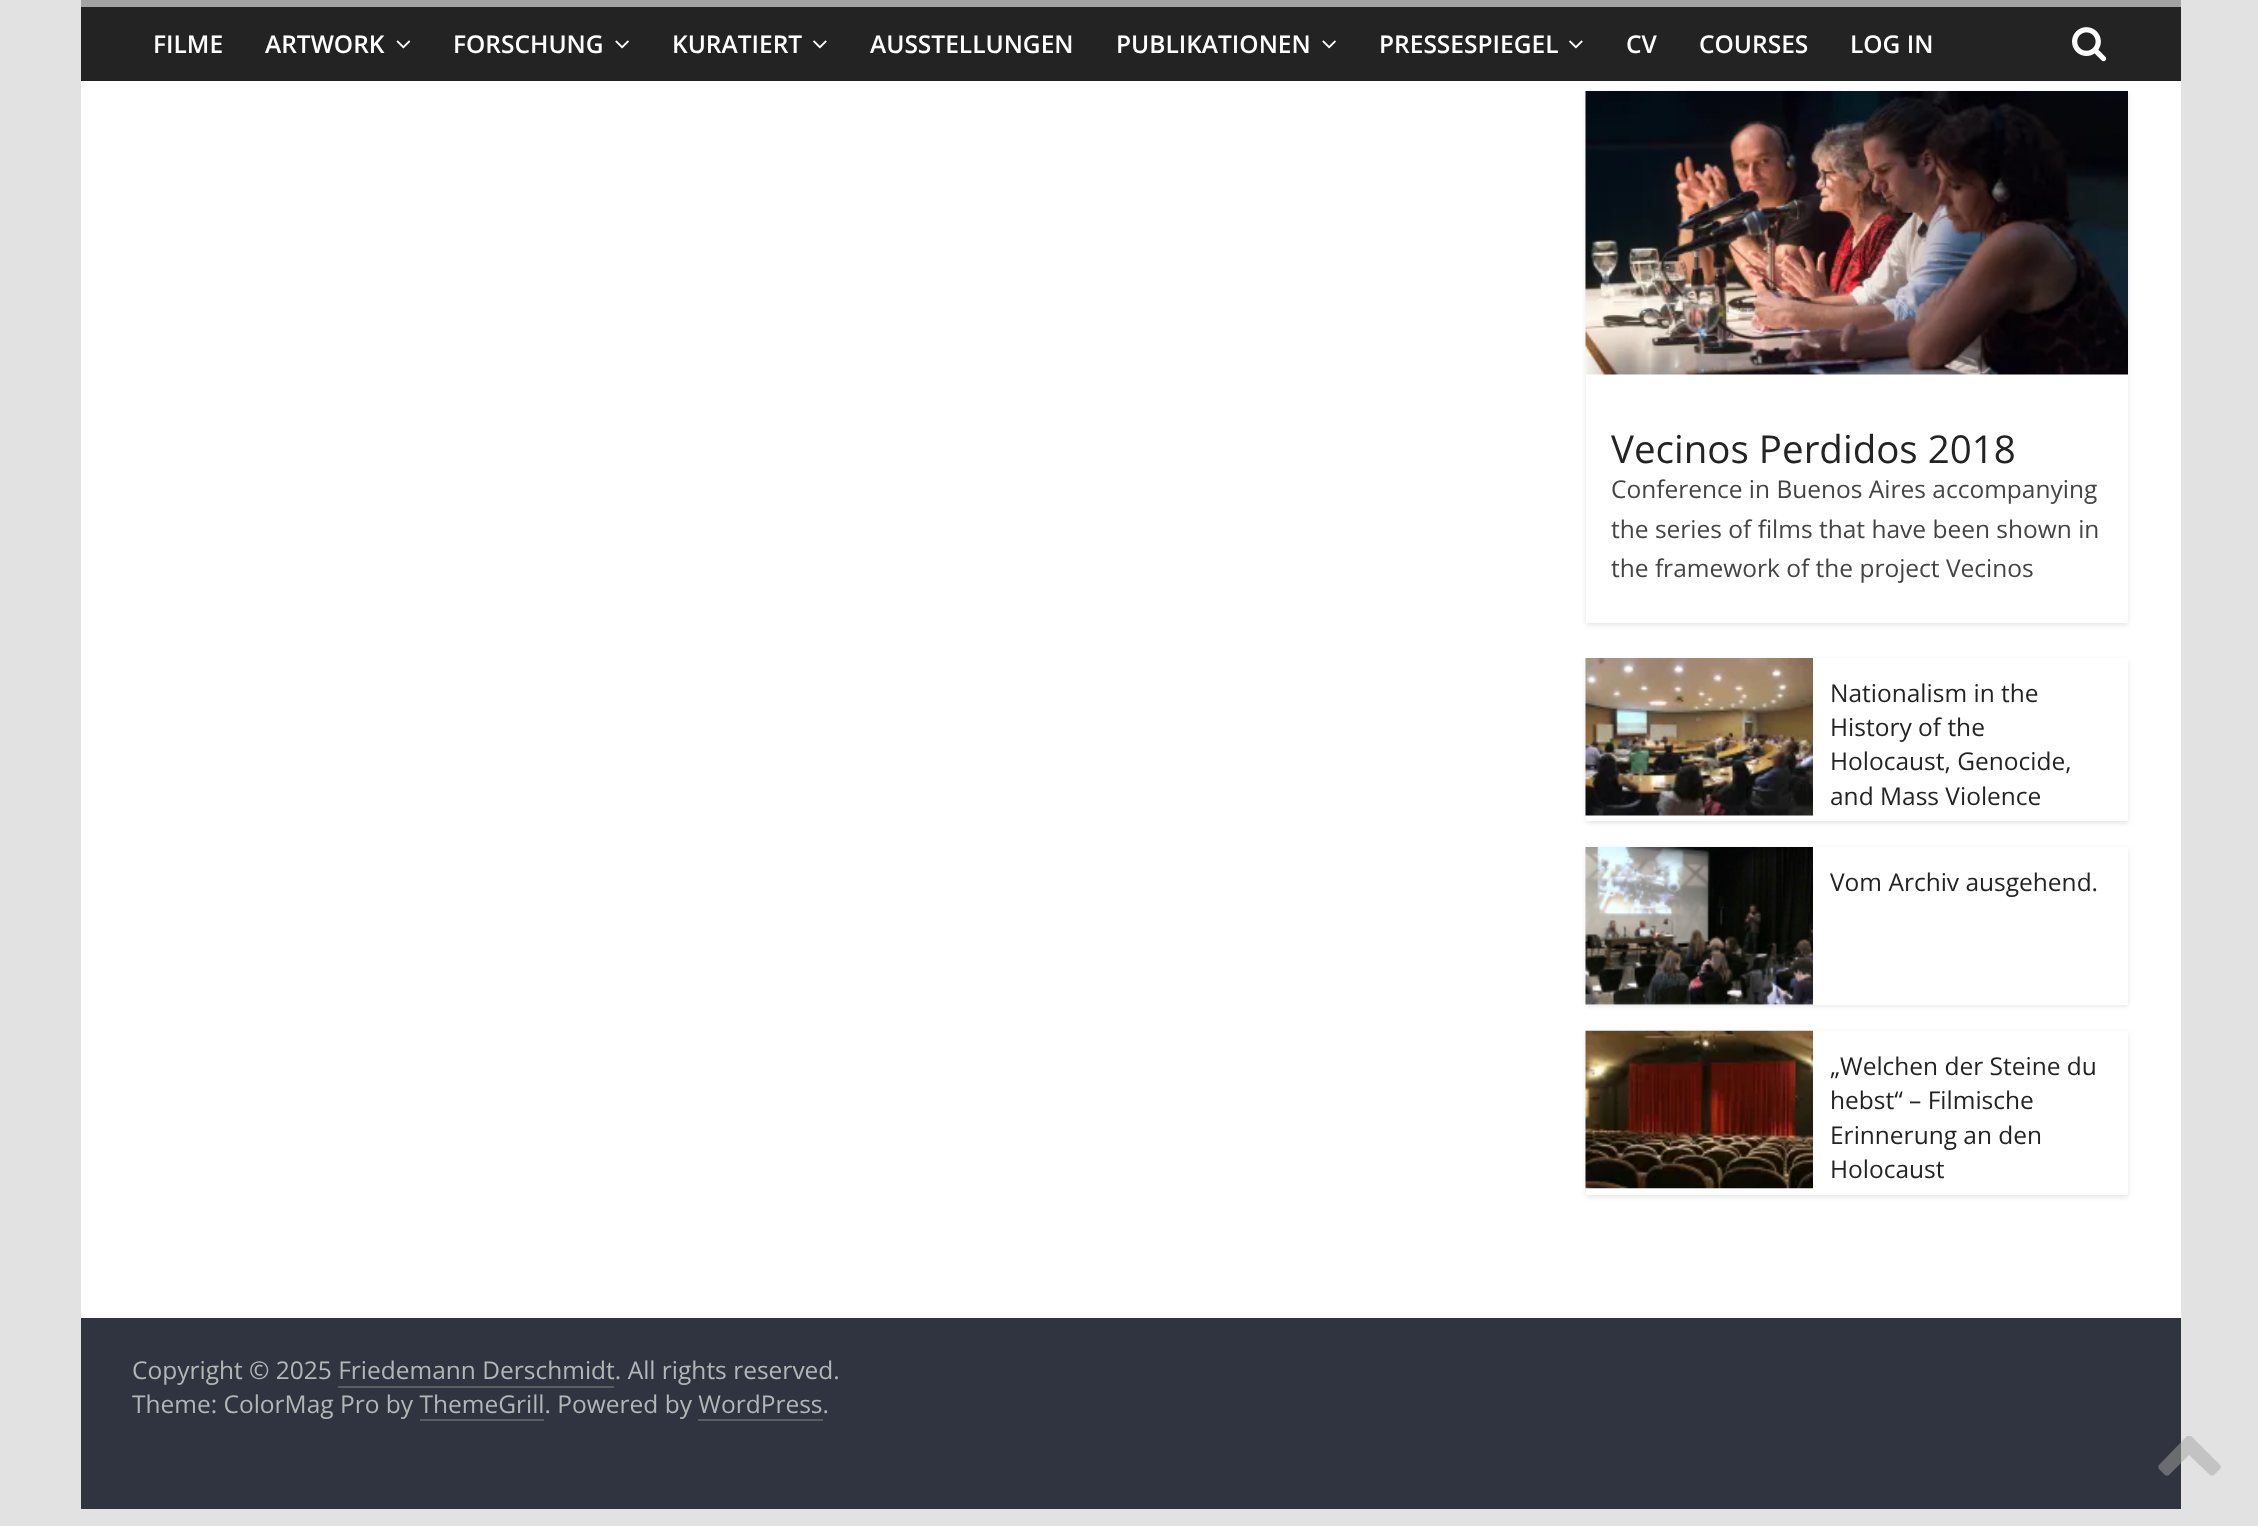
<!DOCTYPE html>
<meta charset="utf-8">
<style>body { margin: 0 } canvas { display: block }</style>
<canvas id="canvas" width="2258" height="1526"></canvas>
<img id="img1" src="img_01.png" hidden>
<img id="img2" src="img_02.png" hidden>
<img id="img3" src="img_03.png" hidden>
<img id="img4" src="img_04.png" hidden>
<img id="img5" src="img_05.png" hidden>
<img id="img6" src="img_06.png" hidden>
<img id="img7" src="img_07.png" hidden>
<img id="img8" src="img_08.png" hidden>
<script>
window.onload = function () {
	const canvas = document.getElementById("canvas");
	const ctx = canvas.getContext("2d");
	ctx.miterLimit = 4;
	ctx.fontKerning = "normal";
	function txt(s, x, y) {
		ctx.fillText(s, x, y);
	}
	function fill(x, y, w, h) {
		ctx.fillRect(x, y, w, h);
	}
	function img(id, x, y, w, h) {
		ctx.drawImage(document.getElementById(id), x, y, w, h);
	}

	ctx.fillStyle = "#E2E2E2";
	fill(0, 0, 2258, 1526);
	ctx.fillStyle = "#232323";
	fill(81, 7, 2100, 74);
	ctx.fillStyle = "#A3A3A3";
	fill(81, 0, 2100, 7);
	img("img1", 396, 40, 15, 9);
	img("img2", 615, 40, 14, 9);
	img("img3", 813, 40, 14, 9);
	img("img2", 1322, 40, 14, 9);
	img("img3", 1569, 40, 14, 9);
	img("img4", 2072, 27, 35, 35);
	ctx.fillStyle = "#FFFFFF";
	fill(81, 81, 2100, 1237);
	ctx.save();
	ctx.beginPath();
	ctx.moveTo(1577, 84);
	ctx.lineTo(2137, 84);
	ctx.lineTo(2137, 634);
	ctx.lineTo(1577, 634);
	ctx.closePath();
	ctx.moveTo(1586, 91);
	ctx.lineTo(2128, 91);
	ctx.lineTo(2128, 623);
	ctx.lineTo(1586, 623);
	ctx.closePath();
	ctx.clip("evenodd");
	ctx.fillStyle = "rgba(0, 0, 0, 0.1)";
	ctx.filter = "blur(2.5px)";
	ctx.beginPath();
	ctx.rect(1586, 93, 542, 532);
	ctx.fill();
	ctx.filter = "none";
	ctx.restore();
	img("img5", 1585, 91, 543, 284);
	ctx.save();
	ctx.beginPath();
	ctx.moveTo(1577, 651);
	ctx.lineTo(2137, 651);
	ctx.lineTo(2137, 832);
	ctx.lineTo(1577, 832);
	ctx.closePath();
	ctx.moveTo(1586, 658);
	ctx.lineTo(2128, 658);
	ctx.lineTo(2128, 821);
	ctx.lineTo(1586, 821);
	ctx.closePath();
	ctx.clip("evenodd");
	ctx.fillStyle = "rgba(0, 0, 0, 0.1)";
	ctx.filter = "blur(2.5px)";
	ctx.beginPath();
	ctx.rect(1586, 660, 542, 163);
	ctx.fill();
	ctx.filter = "none";
	ctx.restore();
	img("img6", 1585, 658, 228, 158);
	ctx.save();
	ctx.beginPath();
	ctx.moveTo(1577, 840);
	ctx.lineTo(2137, 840);
	ctx.lineTo(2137, 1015);
	ctx.lineTo(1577, 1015);
	ctx.closePath();
	ctx.moveTo(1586, 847);
	ctx.lineTo(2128, 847);
	ctx.lineTo(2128, 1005);
	ctx.lineTo(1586, 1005);
	ctx.closePath();
	ctx.clip("evenodd");
	ctx.fillStyle = "rgba(0, 0, 0, 0.1)";
	ctx.filter = "blur(2.5px)";
	ctx.beginPath();
	ctx.rect(1586, 849, 542, 157);
	ctx.fill();
	ctx.filter = "none";
	ctx.restore();
	img("img7", 1585, 847, 228, 158);
	ctx.save();
	ctx.beginPath();
	ctx.moveTo(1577, 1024);
	ctx.lineTo(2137, 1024);
	ctx.lineTo(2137, 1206);
	ctx.lineTo(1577, 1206);
	ctx.closePath();
	ctx.moveTo(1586, 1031);
	ctx.lineTo(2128, 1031);
	ctx.lineTo(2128, 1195);
	ctx.lineTo(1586, 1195);
	ctx.closePath();
	ctx.clip("evenodd");
	ctx.fillStyle = "rgba(0, 0, 0, 0.1)";
	ctx.filter = "blur(2.5px)";
	ctx.beginPath();
	ctx.rect(1586, 1033, 542, 164);
	ctx.fill();
	ctx.filter = "none";
	ctx.restore();
	img("img8", 1585, 1030, 228, 159);
	ctx.fillStyle = "#303440";
	fill(81, 1318, 2100, 191);
	ctx.fillStyle = "#5A5D62";
	fill(338, 1386, 276, 2);
	fill(420, 1419, 124, 2);
	fill(698, 1419, 125, 2);
	ctx.fillStyle = "rgba(163, 163, 163, 0.5)";
	ctx.beginPath();
	ctx.moveTo(2220, 1469);
	ctx.bezierCurveTo(2221, 1468, 2221, 1466, 2220, 1465);
	ctx.lineTo(2191, 1436);
	ctx.bezierCurveTo(2190, 1436, 2188, 1436, 2187, 1436);
	ctx.lineTo(2159, 1465);
	ctx.bezierCurveTo(2158, 1466, 2158, 1468, 2159, 1469);
	ctx.lineTo(2165, 1475);
	ctx.bezierCurveTo(2166, 1476, 2168, 1476, 2169, 1475);
	ctx.lineTo(2189, 1455);
	ctx.lineTo(2210, 1475);
	ctx.bezierCurveTo(2211, 1476, 2213, 1476, 2214, 1475);
	ctx.closePath();
	ctx.fill();
	ctx.font = "600 24.5px Open Sans";
	ctx.fillStyle = "#FFFFFF";
	txt("FILME", 153, 53);
	txt("ARTWORK", 265, 53);
	txt("FORSCHUNG", 453, 53);
	txt("KURATIERT", 672, 53);
	txt("AUSSTELLUNGEN", 870, 53);
	txt("PUBLIKATIONEN", 1116, 53);
	txt("PRESSESPIEGEL", 1379, 53);
	txt("CV", 1626, 53);
	txt("COURSES", 1699, 53);
	txt("LOG IN", 1850, 53);
	ctx.font = "38.5px Open Sans";
	ctx.fillStyle = "#232323";
	txt("Vecinos Perdidos 2018", 1611, 463);
	ctx.font = "24.5px Open Sans";
	ctx.fillStyle = "#444444";
	txt("Conference in Buenos Aires accompanying", 1611, 498);
	txt("the series of films that have been shown in", 1611, 538);
	txt("the framework of the project Vecinos", 1611, 577);
	ctx.fillStyle = "#232323";
	txt("Nationalism in the", 1830, 702);
	txt("History of the", 1830, 736);
	txt("Holocaust, Genocide,", 1830, 770);
	txt("and Mass Violence", 1830, 805);
	txt("Vom Archiv ausgehend.", 1830, 891);
	txt("„Welchen der Steine du", 1830, 1075);
	txt("hebst“ – Filmische", 1830, 1109);
	txt("Erinnerung an den", 1830, 1144);
	txt("Holocaust", 1830, 1178);
	ctx.fillStyle = "#B1B6B6";
	txt("Copyright © 2025 Friedemann Derschmidt. All rights reserved.", 132, 1379);
	txt("Theme: ColorMag Pro by ThemeGrill. Powered by WordPress.", 132, 1413);
};
</script>
